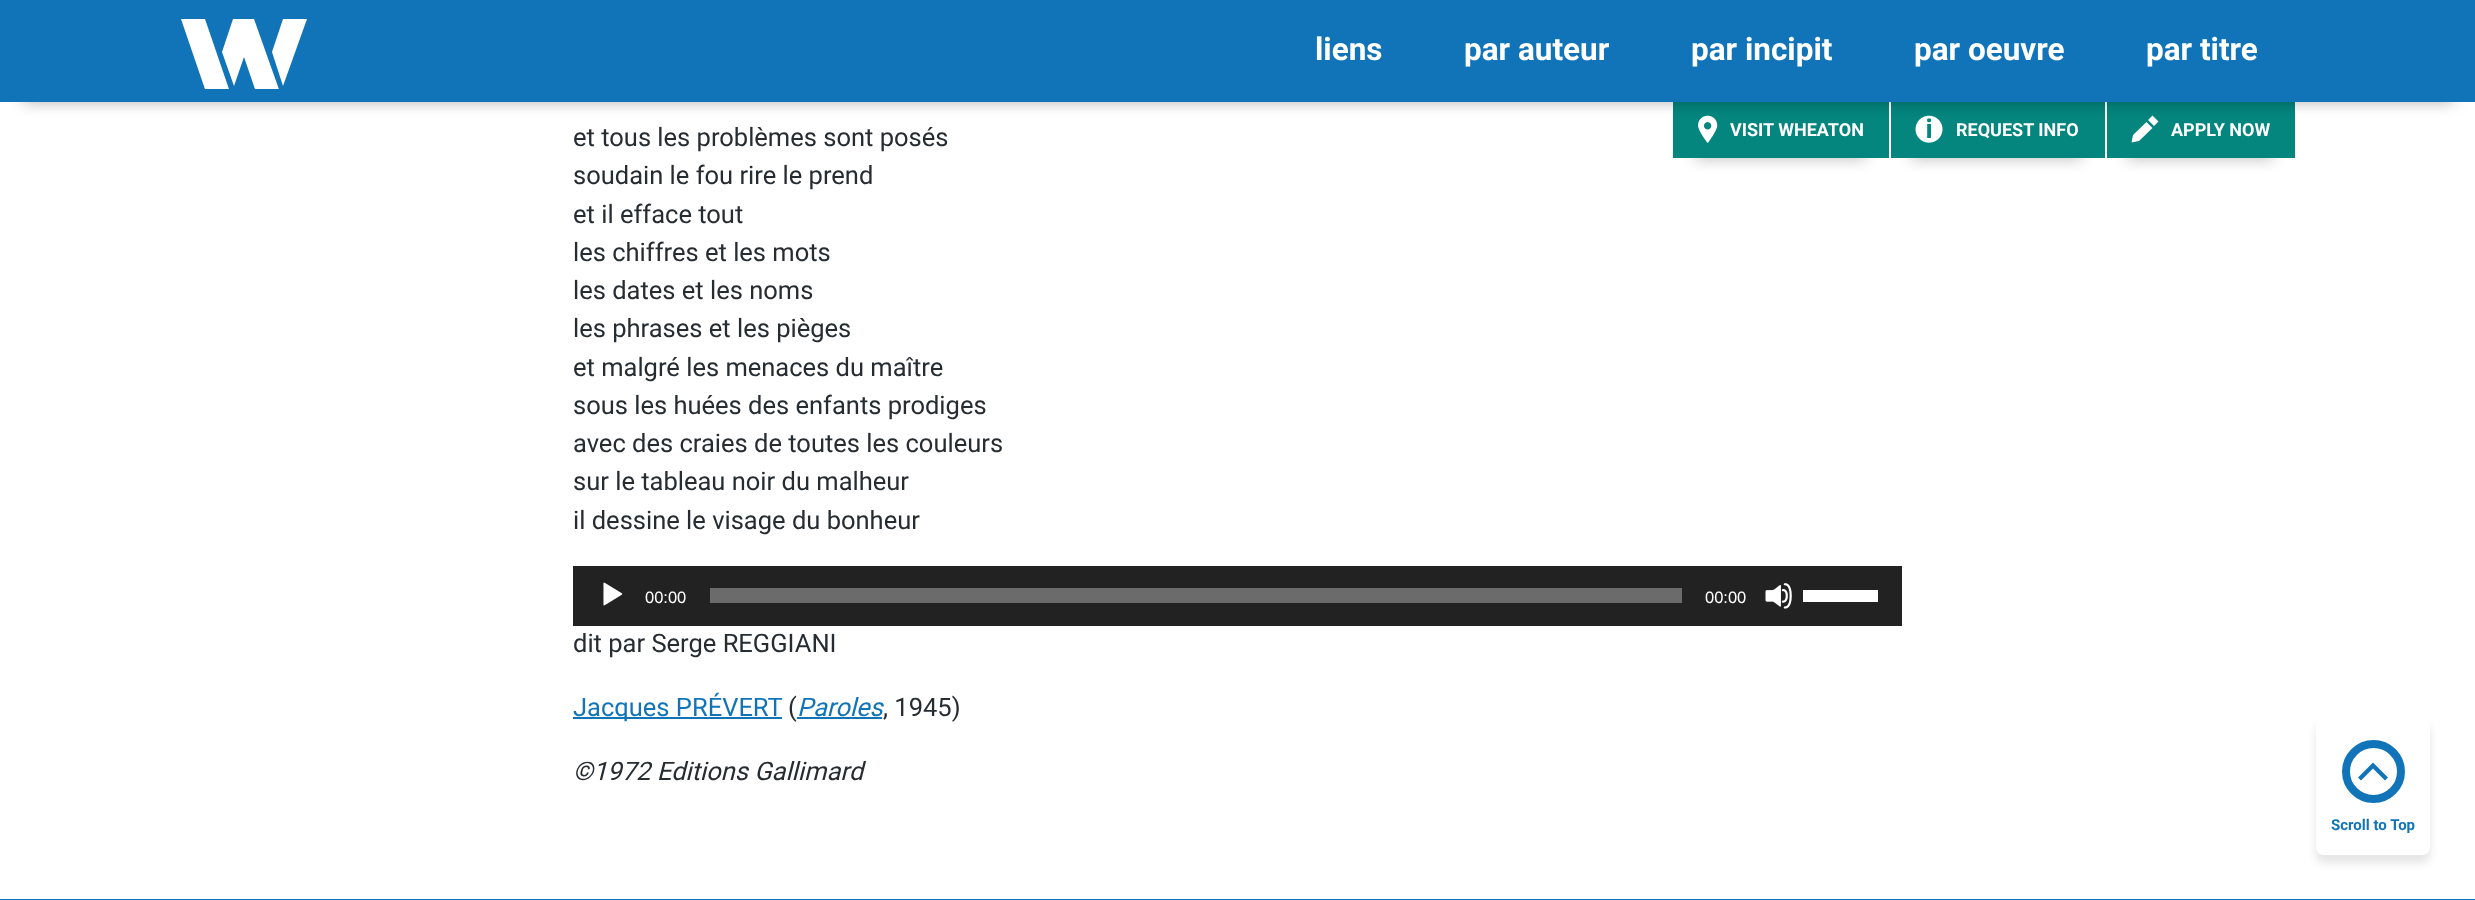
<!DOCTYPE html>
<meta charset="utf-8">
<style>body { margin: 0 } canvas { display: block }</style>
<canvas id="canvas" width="2475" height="900"></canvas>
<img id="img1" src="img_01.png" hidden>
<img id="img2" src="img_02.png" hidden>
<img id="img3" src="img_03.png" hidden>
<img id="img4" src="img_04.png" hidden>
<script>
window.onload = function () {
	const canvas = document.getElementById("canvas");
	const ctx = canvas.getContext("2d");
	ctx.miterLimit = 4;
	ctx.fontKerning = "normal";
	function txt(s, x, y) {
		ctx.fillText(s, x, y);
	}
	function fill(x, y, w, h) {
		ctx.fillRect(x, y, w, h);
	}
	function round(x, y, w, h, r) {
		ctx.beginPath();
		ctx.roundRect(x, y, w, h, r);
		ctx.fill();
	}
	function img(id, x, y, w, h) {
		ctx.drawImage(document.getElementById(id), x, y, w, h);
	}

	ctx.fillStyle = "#FFFFFF";
	fill(0, 0, 2475, 900);
	ctx.fillStyle = "rgba(0, 0, 0, 0.3)";
	ctx.filter = "blur(7.5px)";
	ctx.beginPath();
	ctx.rect(1695, 147, 171, 11);
	ctx.fill();
	ctx.filter = "none";
	ctx.fillStyle = "#04857E";
	fill(1673, 102, 216, 56);
	img("img1", 1698, 115, 20, 28);
	ctx.fillStyle = "rgba(0, 0, 0, 0.3)";
	ctx.filter = "blur(7.5px)";
	ctx.beginPath();
	ctx.rect(1911, 147, 171, 11);
	ctx.fill();
	ctx.filter = "none";
	ctx.fillStyle = "#04857E";
	fill(1891, 102, 214, 56);
	img("img2", 1915, 115, 28, 28);
	ctx.fillStyle = "rgba(0, 0, 0, 0.3)";
	ctx.filter = "blur(7.5px)";
	ctx.beginPath();
	ctx.rect(2127, 147, 146, 11);
	ctx.fill();
	ctx.filter = "none";
	ctx.fillStyle = "#04857E";
	fill(2107, 102, 188, 56);
	ctx.fillStyle = "#FFFFFF";
	ctx.beginPath();
	ctx.moveTo(2133, 135);
	ctx.lineTo(2131.5, 142.5);
	ctx.lineTo(2139, 141);
	ctx.lineTo(2152.5, 128);
	ctx.lineTo(2146.5, 122);
	ctx.closePath();
	ctx.moveTo(2152.5, 115.5);
	ctx.lineTo(2148, 120);
	ctx.lineTo(2154, 126);
	ctx.lineTo(2158.5, 121.5);
	ctx.closePath();
	ctx.fill();
	ctx.fillStyle = "rgba(0, 0, 0, 0.3)";
	ctx.filter = "blur(7.5px)";
	ctx.beginPath();
	ctx.rect(23, 45, 2430, 57);
	ctx.fill();
	ctx.filter = "none";
	ctx.fillStyle = "#1274B8";
	fill(0, 0, 2475, 102);
	ctx.save();
	ctx.beginPath();
	ctx.rect(180, 8, 128, 81);
	ctx.clip();
	ctx.fillStyle = "#FFFFFF";
	ctx.beginPath();
	ctx.moveTo(205, 19);
	ctx.lineTo(181, 19);
	ctx.lineTo(207, 95);
	ctx.lineTo(231, 95);
	ctx.closePath();
	ctx.fill();
	ctx.restore();
	ctx.fillStyle = "#FFFFFF";
	ctx.beginPath();
	ctx.moveTo(283, 86);
	ctx.lineTo(307, 19);
	ctx.lineTo(283, 19);
	ctx.lineTo(272, 52);
	ctx.closePath();
	ctx.fill();
	ctx.save();
	ctx.beginPath();
	ctx.rect(180, 8, 128, 81);
	ctx.clip();
	ctx.beginPath();
	ctx.moveTo(254, 19);
	ctx.lineTo(233, 19);
	ctx.lineTo(222, 52);
	ctx.lineTo(234, 86);
	ctx.lineTo(244, 57);
	ctx.lineTo(257, 95);
	ctx.lineTo(281, 95);
	ctx.closePath();
	ctx.fill();
	ctx.restore();
	ctx.fillStyle = "#222222";
	fill(573, 566, 1329, 60);
	img("img3", 603, 582, 20, 24);
	ctx.fillStyle = "#6B6B6B";
	fill(710, 588, 972, 15);
	img("img4", 1765, 583, 27, 26);
	ctx.fillStyle = "#FFFFFF";
	fill(1803, 590, 75, 12);
	ctx.fillStyle = "#1274B8";
	fill(573, 717, 209, 2);
	fill(797, 717, 85, 2);
	ctx.fillStyle = "rgba(0, 0, 0, 0.1)";
	ctx.filter = "blur(4px)";
	ctx.beginPath();
	ctx.roundRect(2316, 725, 114, 138, 8);
	ctx.fill();
	ctx.filter = "none";
	ctx.fillStyle = "#FFFFFF";
	round(2316, 717, 114, 138, 8);
	ctx.beginPath();
	ctx.arc(2373.5, 771.5, 27.5, 0, Math.PI * 2);
	ctx.strokeStyle = "#1274B8";
	ctx.lineWidth = 8;
	ctx.stroke();
	ctx.fillStyle = "#1274B8";
	ctx.beginPath();
	ctx.moveTo(2385, 780.5);
	ctx.lineTo(2373, 768.5);
	ctx.lineTo(2361, 780.5);
	ctx.lineTo(2358, 777.5);
	ctx.lineTo(2373, 762.5);
	ctx.lineTo(2388, 777.5);
	ctx.closePath();
	ctx.fill();
	fill(0, 899, 2475, 1);
	ctx.font = "bold 31.5px Roboto";
	ctx.fillStyle = "#FFFFFF";
	txt("liens", 1315, 60);
	txt("par auteur", 1464, 60);
	txt("par incipit", 1691, 60);
	txt("par oeuvre", 1914, 60);
	txt("par titre", 2146, 60);
	ctx.font = "bold 18px Roboto";
	txt("VISIT WHEATON", 1730, 136);
	txt("REQUEST INFO", 1956, 136);
	txt("APPLY NOW", 2171, 136);
	ctx.font = "25.5px Roboto";
	ctx.fillStyle = "#262D32";
	txt("et tous les problèmes sont posés", 573, 146);
	txt("soudain le fou rire le prend", 573, 184);
	txt("et il efface tout", 573, 223);
	txt("les chiffres et les mots", 573, 261);
	txt("les dates et les noms", 573, 299);
	txt("les phrases et les pièges", 573, 337);
	txt("et malgré les menaces du maître", 573, 376);
	txt("sous les huées des enfants prodiges", 573, 414);
	txt("avec des craies de toutes les couleurs", 573, 452);
	txt("sur le tableau noir du malheur", 573, 490);
	txt("il dessine le visage du bonheur", 573, 529);
	ctx.font = "16.5px Liberation Sans";
	ctx.fillStyle = "#FFFFFF";
	txt("00:00", 645, 603);
	txt("00:00", 1705, 603);
	ctx.font = "25.5px Roboto";
	ctx.fillStyle = "#262D32";
	txt("dit par Serge REGGIANI", 573, 652);
	ctx.fillStyle = "#1274B8";
	txt("Jacques PRÉVERT", 573, 716);
	ctx.fillStyle = "#262D32";
	txt("(", 788, 716);
	ctx.font = "italic 25.5px Roboto";
	ctx.fillStyle = "#1274B8";
	txt("Paroles", 797, 716);
	ctx.font = "25.5px Roboto";
	ctx.fillStyle = "#262D32";
	txt(", 1945)", 883, 716);
	ctx.font = "italic 25.5px Roboto";
	txt("©1972 Editions Gallimard", 573, 780);
	ctx.font = "bold 15px Roboto";
	ctx.fillStyle = "#1274B8";
	txt("Scroll to Top", 2331, 830);
};
</script>
